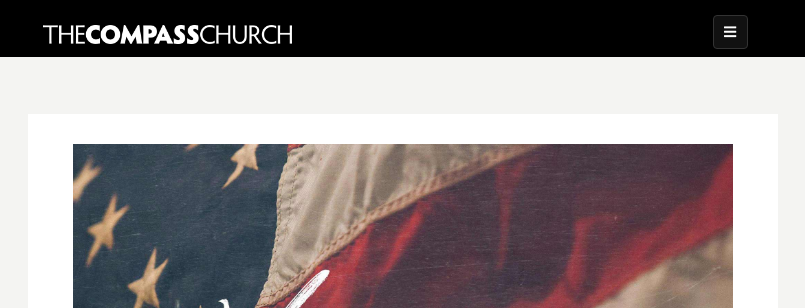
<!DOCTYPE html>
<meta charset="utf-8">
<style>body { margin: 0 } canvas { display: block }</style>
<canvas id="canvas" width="805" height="308"></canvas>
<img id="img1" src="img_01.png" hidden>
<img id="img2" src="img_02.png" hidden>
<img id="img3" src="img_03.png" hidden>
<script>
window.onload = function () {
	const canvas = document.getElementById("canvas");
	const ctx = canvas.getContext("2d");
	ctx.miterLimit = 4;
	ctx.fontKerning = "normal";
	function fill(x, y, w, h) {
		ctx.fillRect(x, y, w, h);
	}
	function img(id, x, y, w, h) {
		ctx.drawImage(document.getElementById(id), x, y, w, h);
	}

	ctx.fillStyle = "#F4F4F2";
	fill(0, 0, 805, 308);
	ctx.fillStyle = "#000000";
	fill(0, 0, 805, 57);
	img("img1", 43, 25, 249, 19);
	ctx.fillStyle = "#111111";
	ctx.beginPath();
	ctx.roundRect(713.5, 15.5, 34, 33, 3.5);
	ctx.fill();
	ctx.strokeStyle = "#333333";
	ctx.stroke();
	img("img2", 724, 26, 13, 12);
	ctx.fillStyle = "#FFFFFF";
	fill(28, 114, 750, 194);
	img("img3", 73, 144, 660, 164);
};
</script>
